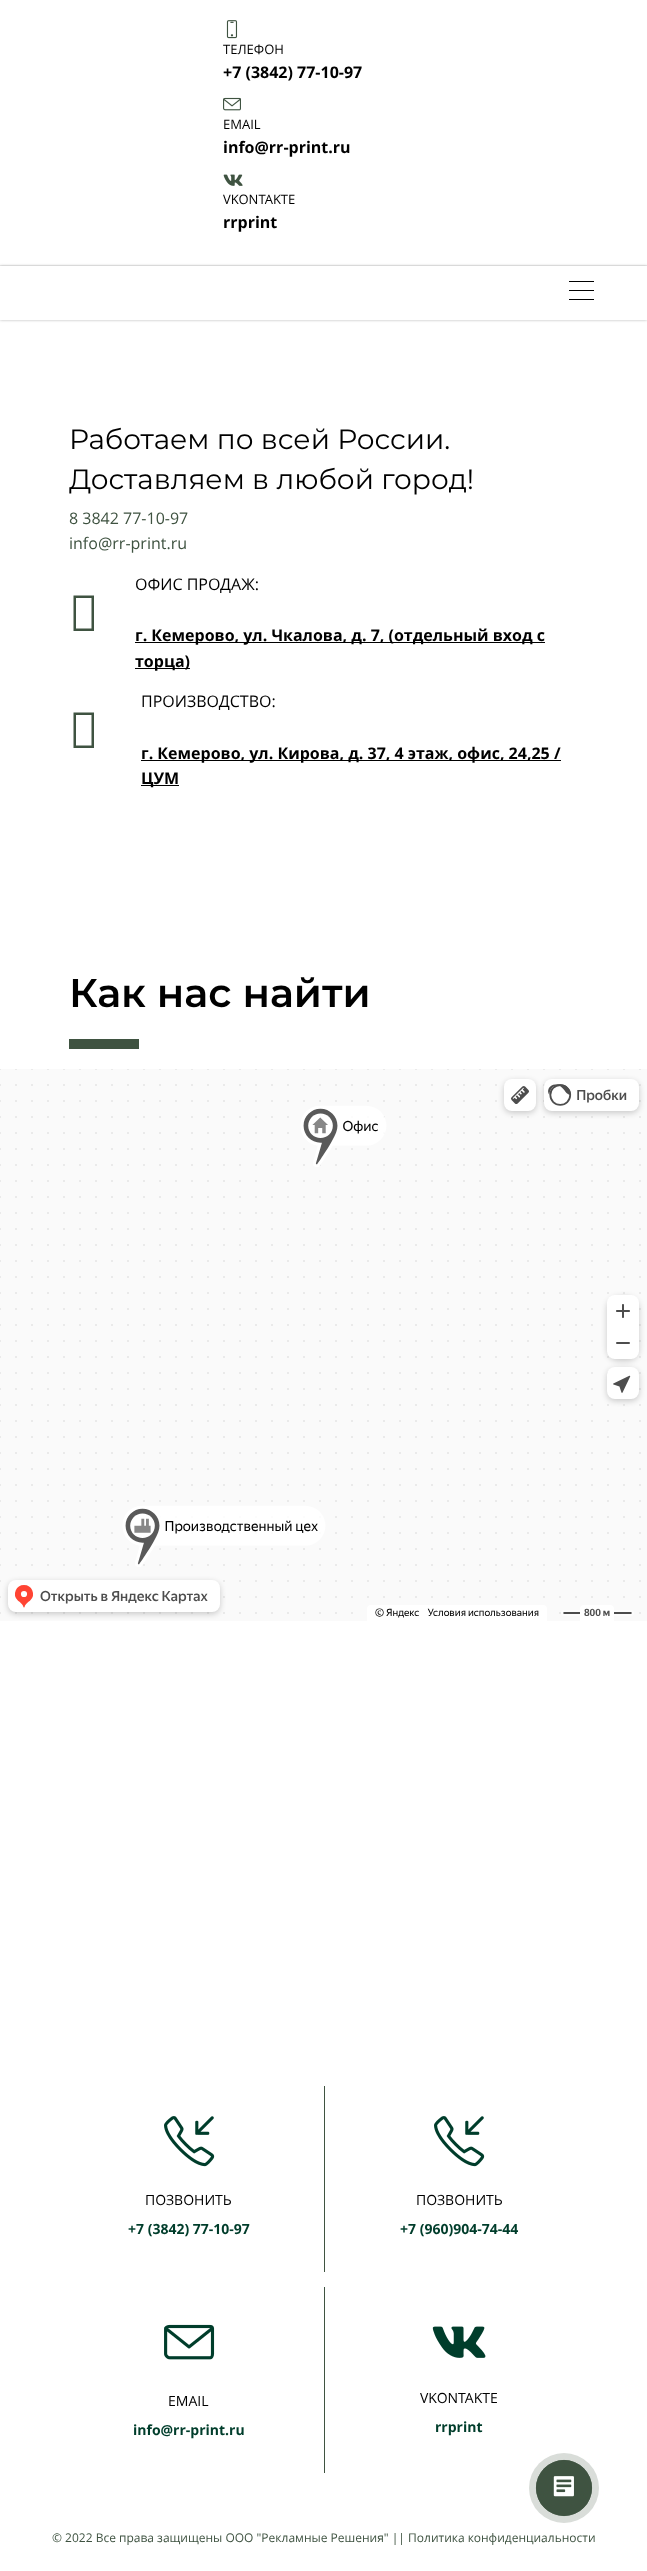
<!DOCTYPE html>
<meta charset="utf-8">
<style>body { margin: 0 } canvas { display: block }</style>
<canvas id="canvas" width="647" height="2571"></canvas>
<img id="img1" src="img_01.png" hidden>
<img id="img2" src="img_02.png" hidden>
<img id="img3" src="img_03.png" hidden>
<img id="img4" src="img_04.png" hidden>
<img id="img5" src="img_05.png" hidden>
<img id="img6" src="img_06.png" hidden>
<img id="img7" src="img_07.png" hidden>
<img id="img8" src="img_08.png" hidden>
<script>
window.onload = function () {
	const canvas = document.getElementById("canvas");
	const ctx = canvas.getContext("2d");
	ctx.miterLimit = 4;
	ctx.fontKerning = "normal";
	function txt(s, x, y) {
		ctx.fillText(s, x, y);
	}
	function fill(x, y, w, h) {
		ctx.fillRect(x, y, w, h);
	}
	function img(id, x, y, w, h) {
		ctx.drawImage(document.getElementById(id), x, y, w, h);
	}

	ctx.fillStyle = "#FFFFFF";
	fill(0, 0, 647, 2571);
	ctx.fillStyle = "#EEEEEE";
	fill(0, 265, 647, 1);
	img("img1", 226, 20, 12, 19);
	img("img2", 223, 97, 18, 14);
	img("img3", 223, 174, 20, 12);
	ctx.save();
	ctx.beginPath();
	ctx.moveTo(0, 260);
	ctx.lineTo(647, 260);
	ctx.lineTo(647, 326);
	ctx.lineTo(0, 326);
	ctx.closePath();
	ctx.moveTo(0, 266);
	ctx.lineTo(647, 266);
	ctx.lineTo(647, 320);
	ctx.lineTo(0, 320);
	ctx.closePath();
	ctx.clip("evenodd");
	ctx.fillStyle = "#B5B5B5";
	ctx.filter = "blur(1.5px)";
	ctx.beginPath();
	ctx.rect(0, 266, 647, 54);
	ctx.fill();
	ctx.filter = "none";
	ctx.restore();
	ctx.fillStyle = "#000000";
	fill(569, 281, 25, 1);
	fill(569, 290, 25, 1);
	fill(569, 299, 25, 1);
	ctx.fillStyle = "#3F5341";
	ctx.beginPath();
	ctx.moveTo(73.5, 631);
	ctx.lineTo(73.5, 595.5);
	ctx.lineTo(94, 595.5);
	ctx.lineTo(94, 631);
	ctx.closePath();
	ctx.moveTo(76, 628.5);
	ctx.lineTo(91.5, 628.5);
	ctx.lineTo(91.5, 598);
	ctx.lineTo(76, 598);
	ctx.closePath();
	ctx.fill();
	ctx.fillStyle = "#000000";
	fill(135, 642, 410, 1);
	fill(135, 668, 55, 1);
	ctx.fillStyle = "#3F5341";
	ctx.beginPath();
	ctx.moveTo(73.5, 748);
	ctx.lineTo(73.5, 712.5);
	ctx.lineTo(94, 712.5);
	ctx.lineTo(94, 748);
	ctx.closePath();
	ctx.moveTo(76, 745.5);
	ctx.lineTo(91.5, 745.5);
	ctx.lineTo(91.5, 715);
	ctx.lineTo(76, 715);
	ctx.closePath();
	ctx.fill();
	ctx.fillStyle = "#000000";
	fill(141, 760, 420, 1);
	fill(141, 785, 38, 1);
	ctx.fillStyle = "#3F5341";
	fill(69, 1039, 70, 10);
	img("img4", 0, 1069, 647, 552);
	img("img5", 164, 2116, 51, 51);
	fill(324, 2086, 1, 186);
	img("img5", 434, 2116, 51, 51);
	img("img6", 164, 2324, 51, 36);
	fill(324, 2287, 1, 186);
	img("img7", 432, 2326, 54, 32);
	ctx.fillStyle = "#D9DDD9";
	ctx.beginPath();
	ctx.arc(564, 2488, 35, 0, Math.PI * 2);
	ctx.fill();
	ctx.beginPath();
	ctx.arc(564, 2488, 27.6, 0, Math.PI * 2);
	ctx.strokeStyle = "#3F5341";
	ctx.lineWidth = 0.8;
	ctx.stroke();
	ctx.fillStyle = "#3F5341";
	ctx.beginPath();
	ctx.arc(564, 2488, 28, 0, Math.PI * 2);
	ctx.fill();
	img("img8", 553, 2476, 21, 21);
	ctx.font = "13px Open Sans";
	ctx.fillStyle = "#000000";
	txt("ТЕЛЕФОН", 223, 54);
	ctx.font = "bold 16px Open Sans";
	txt("+7 (3842) 77-10-97", 223, 78);
	ctx.font = "13px Open Sans";
	txt("EMAIL", 223, 129);
	ctx.font = "bold 16px Open Sans";
	txt("info@rr-print.ru", 223, 153);
	ctx.font = "13px Open Sans";
	txt("VKONTAKTE", 223, 204);
	ctx.font = "bold 16px Open Sans";
	txt("rrprint", 223, 228);
	ctx.font = "28px Montserrat";
	txt("Работаем по всей России.", 69, 449);
	txt("Доставляем в любой город!", 69, 489);
	ctx.font = "16px Open Sans";
	ctx.fillStyle = "#3F5341";
	txt("8 3842 77-10-97", 69, 524);
	txt("info@rr-print.ru", 69, 549);
	ctx.fillStyle = "#000000";
	txt("ОФИС ПРОДАЖ:", 135, 590);
	ctx.font = "bold 16px Open Sans";
	txt("г. Кемерово, ул. Чкалова, д. 7, (отдельный вход с", 135, 641);
	txt("торца)", 135, 667);
	ctx.font = "16px Open Sans";
	txt("ПРОИЗВОДСТВО:", 141, 707);
	ctx.font = "bold 16px Open Sans";
	txt("г. Кемерово, ул. Кирова, д. 37, 4 этаж, офис, 24,25 /", 141, 759);
	txt("ЦУМ", 141, 784);
	ctx.font = "600 40px Montserrat";
	txt("Как нас найти", 69, 1007);
	ctx.font = "14px Open Sans";
	txt("ПОЗВОНИТЬ", 145, 2205);
	ctx.font = "bold 14px Open Sans";
	ctx.fillStyle = "#003D2B";
	txt("+7 (3842) 77-10-97", 128, 2234);
	ctx.font = "14px Open Sans";
	ctx.fillStyle = "#000000";
	txt("ПОЗВОНИТЬ", 416, 2205);
	ctx.font = "bold 14px Open Sans";
	ctx.fillStyle = "#003D2B";
	txt("+7 (960)904-74-44", 400, 2234);
	ctx.font = "14px Open Sans";
	ctx.fillStyle = "#000000";
	txt("EMAIL", 168, 2406);
	ctx.font = "bold 14px Open Sans";
	ctx.fillStyle = "#003D2B";
	txt("info@rr-print.ru", 133, 2435);
	ctx.font = "14px Open Sans";
	ctx.fillStyle = "#000000";
	txt("VKONTAKTE", 420, 2403);
	ctx.font = "bold 14px Open Sans";
	ctx.fillStyle = "#003D2B";
	txt("rrprint", 435, 2432);
	ctx.font = "12px Open Sans";
	ctx.fillStyle = "#3F5341";
	txt("© 2022 Все права защищены ООО \"Рекламные Решения\" || Политика конфиденциальности", 52, 2542);
};
</script>
